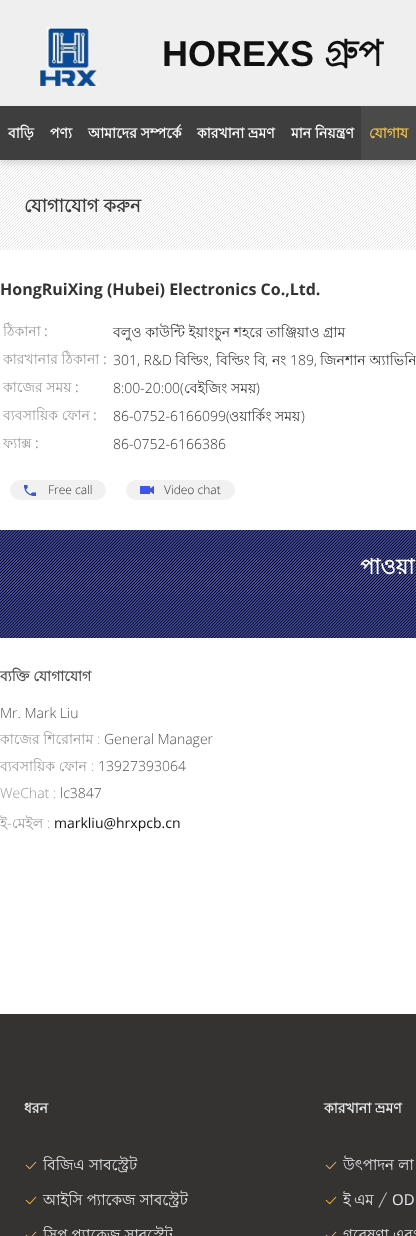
<!DOCTYPE html>
<meta charset="utf-8">
<style>body { margin: 0 } canvas { display: block }</style>
<canvas id="canvas" width="416" height="1236"></canvas>
<img id="img1" src="img_01.png" hidden>
<img id="img2" src="img_02.png" hidden>
<img id="img3" src="img_03.png" hidden>
<img id="img4" src="img_04.png" hidden>
<img id="img5" src="img_05.png" hidden>
<img id="img6" src="img_06.png" hidden>
<img id="img7" src="img_07.png" hidden>
<script>
window.onload = function () {
	const canvas = document.getElementById("canvas");
	const ctx = canvas.getContext("2d");
	ctx.miterLimit = 4;
	ctx.fontKerning = "normal";
	function txt(s, x, y) {
		ctx.fillText(s, x, y);
	}
	function fill(x, y, w, h) {
		ctx.fillRect(x, y, w, h);
	}
	function round(x, y, w, h, r) {
		ctx.beginPath();
		ctx.roundRect(x, y, w, h, r);
		ctx.fill();
	}
	function img(id, x, y, w, h) {
		ctx.drawImage(document.getElementById(id), x, y, w, h);
	}

	ctx.fillStyle = "#FFFFFF";
	fill(0, 0, 416, 1236);
	ctx.fillStyle = "#EFEFEF";
	fill(0, 0, 416, 106);
	img("img1", 40, 27, 58, 59);
	img("img2", 0, 160, 416, 90);
	ctx.fillStyle = "rgba(41, 41, 41, 0.15)";
	ctx.filter = "blur(3px)";
	ctx.beginPath();
	ctx.rect(0, 110, 416, 54);
	ctx.fill();
	ctx.filter = "none";
	ctx.fillStyle = "#3E3E3E";
	fill(0, 106, 361, 54);
	ctx.fillStyle = "#4A4A4A";
	fill(361, 106, 55, 54);
	ctx.fillStyle = "#F1F1F1";
	round(10, 480, 96, 20, 10);
	img("img3", 24, 485, 12, 11);
	round(126, 480, 109, 20, 10);
	img("img4", 140, 486, 14, 8);
	ctx.fillStyle = "#40499D";
	fill(0, 530, 416, 108);
	img("img5", 0, 530, 416, 108);
	ctx.fillStyle = "#353232";
	fill(0, 1014, 416, 222);
	img("img6", 25, 1161, 12, 9);
	img("img6", 25, 1196, 12, 9);
	img("img7", 25, 1231, 12, 5);
	img("img6", 325, 1161, 12, 9);
	img("img6", 325, 1196, 12, 9);
	img("img7", 325, 1231, 12, 5);
	ctx.font = "bold 36px Liberation Sans";
	ctx.fillStyle = "#111111";
	txt("HOREXS", 162, 66);
	ctx.font = "bold 36px Lohit Bengali";
	txt("গ্রুপ", 324, 66);
	ctx.font = "bold 14px Lohit Bengali";
	ctx.fillStyle = "#FFFFFF";
	txt("বাড়ি", 8, 138);
	txt("পণ্য", 50, 138);
	txt("আমাদের সম্পর্কে", 88, 138);
	txt("কারখানা ভ্রমণ", 197, 138);
	txt("মান নিয়ন্ত্রণ", 291, 138);
	ctx.fillStyle = "#F3C14B";
	txt("যোগায", 369, 138);
	ctx.font = "bold 18px Lohit Bengali";
	ctx.fillStyle = "#3D3D3D";
	txt("যোগাযোগ করুন", 24, 212);
	ctx.font = "bold 16px Open Sans";
	ctx.fillStyle = "#333333";
	txt("HongRuiXing (Hubei) Electronics Co.,Ltd.", 0, 295);
	ctx.font = "14px Lohit Bengali";
	ctx.fillStyle = "#999999";
	txt("ঠিকানা", 3, 336);
	ctx.font = "14px Open Sans";
	txt(":", 44, 336);
	ctx.wordSpacing = "-0.25px";
	ctx.font = "14px Lohit Bengali";
	ctx.fillStyle = "#333333";
	txt("বলুও কাউন্টি ইয়াংচুন শহরে তাঞ্জিয়াও গ্রাম", 113, 337);
	ctx.fillStyle = "#999999";
	txt("কারখানার ঠিকানা", 3, 364);
	ctx.wordSpacing = "0px";
	ctx.font = "14px Open Sans";
	txt(":", 103, 364);
	ctx.font = "300 14px Open Sans";
	ctx.fillStyle = "#333333";
	txt("301, R&D", 113, 365);
	ctx.font = "14px Lohit Bengali";
	txt("বিল্ডিং", 175, 365);
	ctx.font = "300 14px Open Sans";
	txt(",", 209, 365);
	ctx.font = "14px Lohit Bengali";
	txt("বিল্ডিং বি", 216, 365);
	ctx.font = "300 14px Open Sans";
	txt(",", 265, 365);
	ctx.font = "14px Lohit Bengali";
	txt("নং", 272, 365);
	ctx.font = "300 14px Open Sans";
	txt("189,", 290, 365);
	ctx.font = "14px Lohit Bengali";
	txt("জিনশান অ্যাভিনি", 320, 365);
	ctx.wordSpacing = "-0.25px";
	ctx.fillStyle = "#999999";
	txt("কাজের সময়", 3, 392);
	ctx.wordSpacing = "0px";
	ctx.font = "14px Open Sans";
	txt(":", 75, 392);
	ctx.font = "300 14px Open Sans";
	ctx.fillStyle = "#333333";
	txt("8:00-20:00(", 113, 393);
	ctx.wordSpacing = "-0.25px";
	ctx.font = "14px Lohit Bengali";
	txt("বেইজিং সময়", 184, 393);
	ctx.wordSpacing = "0px";
	ctx.font = "300 14px Open Sans";
	txt(")", 256, 393);
	ctx.wordSpacing = "-0.25px";
	ctx.font = "14px Lohit Bengali";
	ctx.fillStyle = "#999999";
	txt("ব্যবসায়িক ফোন", 3, 420);
	ctx.wordSpacing = "0px";
	ctx.font = "14px Open Sans";
	txt(":", 93, 420);
	ctx.font = "300 14px Open Sans";
	ctx.fillStyle = "#333333";
	txt("86-0752-6166099(", 113, 421);
	ctx.wordSpacing = "-0.25px";
	ctx.font = "14px Lohit Bengali";
	txt("ওয়ার্কিং সময়", 229, 421);
	ctx.wordSpacing = "0px";
	ctx.font = "300 14px Open Sans";
	txt(")", 301, 421);
	ctx.font = "14px Lohit Bengali";
	ctx.fillStyle = "#999999";
	txt("ফ্যাক্স", 3, 448);
	ctx.font = "14px Open Sans";
	txt(":", 35, 448);
	ctx.font = "300 14px Open Sans";
	ctx.fillStyle = "#333333";
	txt("86-0752-6166386", 113, 449);
	ctx.font = "300 12px Open Sans";
	txt("Free call", 48, 494);
	txt("Video chat", 164, 494);
	ctx.font = "bold 21px Lohit Bengali";
	ctx.fillStyle = "#FFFFFF";
	txt("পাওয়া", 360, 574);
	ctx.font = "bold 14px Lohit Bengali";
	ctx.fillStyle = "#515151";
	txt("ব্যক্তি যোগাযোগ", 0, 681);
	ctx.font = "300 14px Open Sans";
	txt("Mr. Mark Liu", 0, 718);
	ctx.wordSpacing = "-0.25px";
	ctx.font = "14px Lohit Bengali";
	ctx.fillStyle = "#999999";
	txt("কাজের শিরোনাম", 0, 744);
	ctx.wordSpacing = "0px";
	ctx.font = "300 14px Open Sans";
	txt(":", 97, 744);
	ctx.fillStyle = "#515151";
	txt("General Manager", 104, 744);
	ctx.wordSpacing = "-0.25px";
	ctx.font = "14px Lohit Bengali";
	ctx.fillStyle = "#999999";
	txt("ব্যবসায়িক ফোন", 0, 771);
	ctx.wordSpacing = "0px";
	ctx.font = "300 14px Open Sans";
	txt(":", 91, 771);
	ctx.fillStyle = "#515151";
	txt("13927393064", 98, 771);
	ctx.fillStyle = "#999999";
	txt("WeChat :", 0, 798);
	ctx.fillStyle = "#515151";
	txt("lc3847", 60, 798);
	ctx.font = "14px Lohit Bengali";
	ctx.fillStyle = "#999999";
	txt("ই", 0, 828);
	ctx.font = "300 14px Open Sans";
	txt("-", 7, 828);
	ctx.font = "14px Lohit Bengali";
	txt("মেইল", 12, 828);
	ctx.font = "300 14px Open Sans";
	txt(":", 47, 828);
	ctx.font = "14px Open Sans";
	ctx.fillStyle = "#111111";
	txt("markliu@hrxpcb.cn", 54, 828);
	ctx.font = "bold 14px Lohit Bengali";
	ctx.fillStyle = "#E9E9E9";
	txt("ধরন", 24, 1113);
	ctx.font = "15px Lohit Bengali";
	txt("বিজিএ সাবস্ট্রেট", 43, 1170);
	txt("আইসি প্যাকেজ সাবস্ট্রেট", 43, 1205);
	txt("সিপ প্যাকেজ সাবস্ট্রেট", 43, 1240);
	ctx.font = "bold 14px Lohit Bengali";
	txt("কারখানা ভ্রমণ", 324, 1113);
	ctx.font = "15px Lohit Bengali";
	txt("উৎপাদন লা", 343, 1170);
	ctx.wordSpacing = "-1px";
	txt("ই এম /", 343, 1205);
	ctx.wordSpacing = "0px";
	ctx.font = "15px Open Sans";
	txt("OD", 392, 1205);
	ctx.font = "15px Lohit Bengali";
	txt("গবেষণা এবং", 343, 1240);
};
</script>
